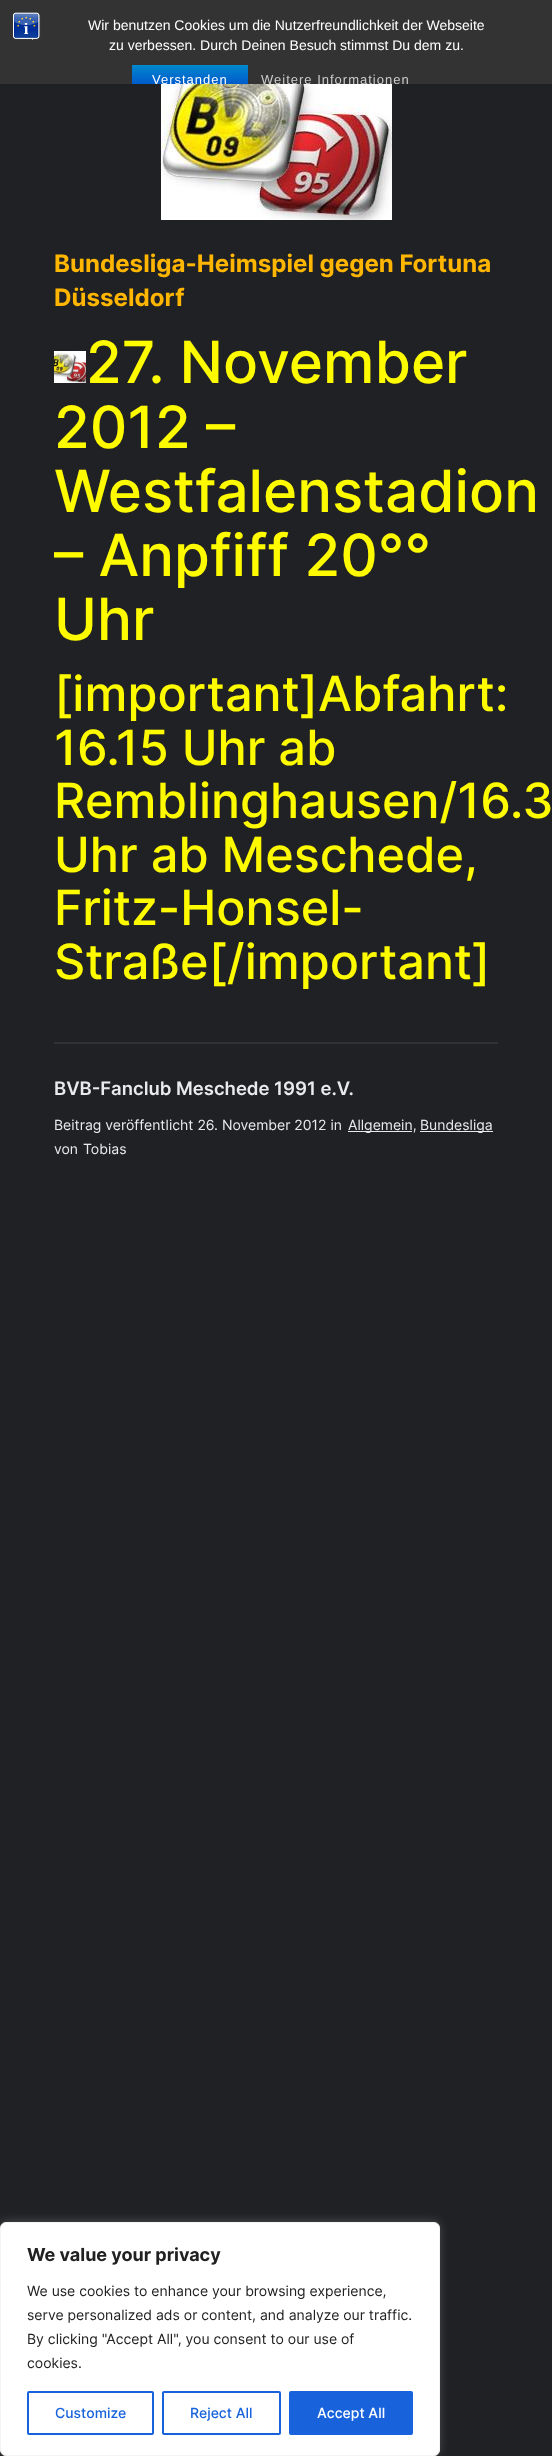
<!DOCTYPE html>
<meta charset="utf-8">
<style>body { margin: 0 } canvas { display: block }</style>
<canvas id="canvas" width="552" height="2456"></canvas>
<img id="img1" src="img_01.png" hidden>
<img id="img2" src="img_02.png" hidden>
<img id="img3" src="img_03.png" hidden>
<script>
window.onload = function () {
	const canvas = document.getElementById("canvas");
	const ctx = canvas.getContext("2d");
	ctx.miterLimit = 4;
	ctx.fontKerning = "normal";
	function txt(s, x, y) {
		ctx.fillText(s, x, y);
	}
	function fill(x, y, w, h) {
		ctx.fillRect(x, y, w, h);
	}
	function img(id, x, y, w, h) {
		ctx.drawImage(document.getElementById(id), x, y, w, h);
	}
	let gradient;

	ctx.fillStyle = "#202124";
	fill(0, 0, 552, 2456);
	ctx.fillStyle = "#333333";
	fill(0, 0, 552, 84);
	img("img1", 13, 12, 28, 28);
	gradient = ctx.createLinearGradient(190, 65, 190, 94);
	gradient.addColorStop(0, "#0088CC");
	gradient.addColorStop(1, "#0044CC");
	ctx.fillStyle = gradient;
	fill(132, 65, 116, 19);
	img("img2", 161, 84, 231, 136);
	img("img3", 54, 351, 32, 32);
	ctx.fillStyle = "#303134";
	fill(54, 1042, 444, 2);
	ctx.fillStyle = "#E8EAED";
	fill(348, 1131, 64, 1);
	fill(420, 1131, 73, 1);
	ctx.fillStyle = "rgba(172, 171, 171, 0.3)";
	ctx.filter = "blur(5px)";
	ctx.beginPath();
	ctx.roundRect(0, 2221, 440, 234, 6);
	ctx.fill();
	ctx.filter = "none";
	ctx.fillStyle = "#FFFFFF";
	ctx.beginPath();
	ctx.roundRect(0.5, 2222.5, 439, 233, 5.5);
	ctx.fill();
	ctx.strokeStyle = "#F4F4F4";
	ctx.stroke();
	ctx.beginPath();
	ctx.roundRect(28, 2392, 125, 42, 1);
	ctx.strokeStyle = "#1863DC";
	ctx.lineWidth = 2;
	ctx.stroke();
	ctx.beginPath();
	ctx.roundRect(163, 2392, 117, 42, 1);
	ctx.stroke();
	ctx.fillStyle = "#1863DC";
	ctx.beginPath();
	ctx.roundRect(290, 2392, 122, 42, 1);
	ctx.fill();
	ctx.stroke();
	ctx.font = "14px Liberation Sans";
	ctx.fillStyle = "#FFFFFF";
	txt("Wir benutzen Cookies um die Nutzerfreundlichkeit der Webseite", 88, 30);
	txt("zu verbessen. Durch Deinen Besuch stimmst Du dem zu.", 109, 50);
	ctx.save();
	ctx.beginPath();
	ctx.rect(0, 0, 552, 84);
	ctx.clip();
	ctx.letterSpacing = "1px";
	ctx.font = "13px Liberation Sans";
	txt("Verstanden", 152, 84);
	ctx.fillStyle = "#CCCCCC";
	txt("Weitere Informationen", 261, 84);
	ctx.restore();
	ctx.font = "bold 24.1px Inter";
	ctx.fillStyle = "#FFB600";
	txt("Bundesliga-Heimspiel gegen Fortuna", 54, 272);
	txt("Düsseldorf", 54, 306);
	ctx.font = "500 58.25px Inter";
	ctx.fillStyle = "#FEFA00";
	txt("27. November", 86, 383);
	txt("2012 –", 54, 448);
	txt("Westfalenstadion", 54, 512);
	txt("– Anpfiff 20°°", 54, 576);
	txt("Uhr", 54, 640);
	ctx.font = "500 48.6px Inter";
	txt("[important]Abfahrt:", 54, 711);
	txt("16.15 Uhr ab", 54, 765);
	txt("Remblinghausen/16.3", 54, 818);
	txt("Uhr ab Meschede,", 54, 872);
	txt("Fritz-Honsel-", 54, 925);
	txt("Straße[/important]", 54, 979);
	ctx.font = "600 18.5px Inter";
	ctx.fillStyle = "#E8EAED";
	txt("BVB-Fanclub Meschede 1991 e.V.", 54, 1095);
	ctx.font = "14px Inter";
	txt("Beitrag veröffentlicht 26. November 2012 in", 54, 1130);
	txt("Allgemein,", 348, 1130);
	txt("Bundesliga", 420, 1130);
	txt("von", 54, 1154);
	txt("Tobias", 83, 1154);
	ctx.font = "bold 18px Inter";
	ctx.fillStyle = "#212121";
	txt("We value your privacy", 27, 2261);
	ctx.font = "14px Inter";
	txt("We use cookies to enhance your browsing experience,", 27, 2296);
	txt("serve personalized ads or content, and analyze our traffic.", 27, 2320);
	txt("By clicking \"Accept All\", you consent to our use of", 27, 2344);
	txt("cookies.", 27, 2368);
	ctx.font = "500 14px Inter";
	ctx.fillStyle = "#1863DC";
	txt("Customize", 55, 2418);
	txt("Reject All", 190, 2418);
	ctx.fillStyle = "#FFFFFF";
	txt("Accept All", 317, 2418);
};
</script>
